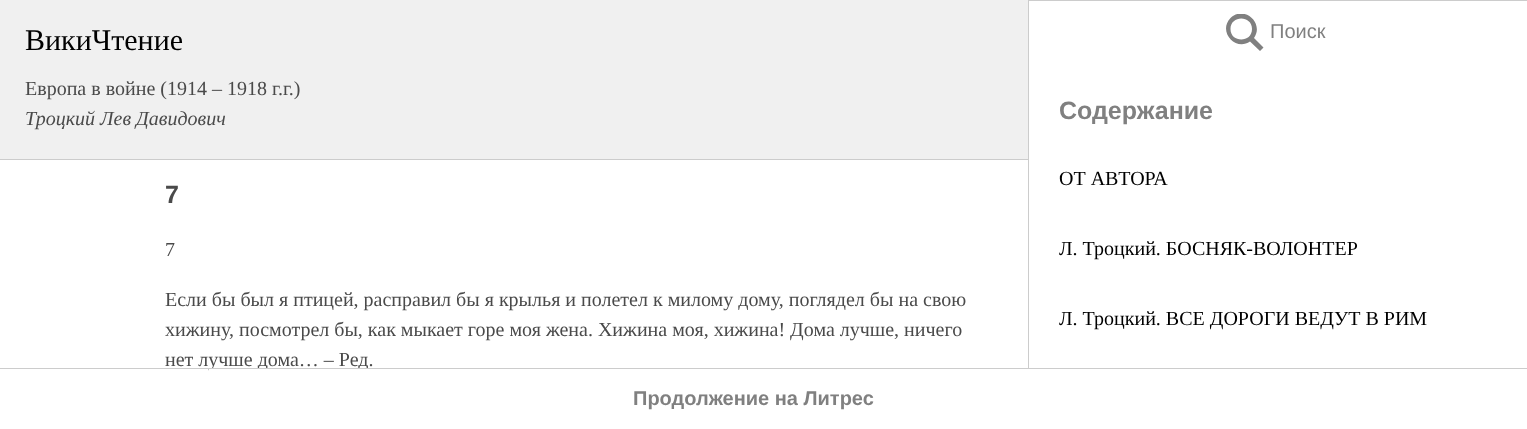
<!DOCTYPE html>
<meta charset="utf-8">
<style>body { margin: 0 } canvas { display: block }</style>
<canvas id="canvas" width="1527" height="429"></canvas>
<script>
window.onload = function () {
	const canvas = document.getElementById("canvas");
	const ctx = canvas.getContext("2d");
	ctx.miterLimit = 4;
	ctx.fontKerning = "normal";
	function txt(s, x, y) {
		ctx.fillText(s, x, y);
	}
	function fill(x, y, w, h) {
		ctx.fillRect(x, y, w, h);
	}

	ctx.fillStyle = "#FFFFFF";
	fill(0, 0, 1527, 429);
	ctx.fillStyle = "#F0F0F0";
	fill(0, 0, 1028, 159);
	ctx.fillStyle = "#CCCCCC";
	fill(0, 159, 1028, 1);
	ctx.strokeStyle = "#CCCCCC";
	ctx.strokeRect(1028.5, 0.5, 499, 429);
	ctx.save();
	ctx.beginPath();
	ctx.rect(1226, 14, 38, 37);
	ctx.clip();
	ctx.fillStyle = "#808080";
	ctx.beginPath();
	ctx.moveTo(1263.5, 47.5);
	ctx.lineTo(1254, 38);
	ctx.bezierCurveTo(1264.5, 23, 1244, 5, 1230.5, 18);
	ctx.bezierCurveTo(1217.5, 31.5, 1235.5, 51.5, 1250, 41.5);
	ctx.lineTo(1260, 51);
	ctx.closePath();
	ctx.moveTo(1230.5, 29);
	ctx.bezierCurveTo(1230.5, 15, 1252, 15, 1252, 29);
	ctx.bezierCurveTo(1252, 43, 1230.5, 43, 1230.5, 29);
	ctx.closePath();
	ctx.fill();
	ctx.restore();
	ctx.font = "30px Liberation Serif";
	ctx.fillStyle = "#000000";
	txt("ВикиЧтение", 25, 50);
	ctx.font = "20px Liberation Serif";
	ctx.fillStyle = "#4A4A4A";
	txt("Европа в войне (1914 – 1918 г.г.)", 25, 95);
	ctx.font = "italic 20px Liberation Serif";
	txt("Троцкий Лев Давидович", 25, 125);
	ctx.font = "20px Liberation Sans";
	ctx.fillStyle = "#808080";
	txt("Поиск", 1270, 38);
	ctx.font = "bold 25px Liberation Sans";
	txt("Содержание", 1059, 119);
	ctx.font = "20px Liberation Serif";
	ctx.fillStyle = "#000000";
	txt("ОТ АВТОРА", 1059, 185);
	txt("Л. Троцкий. БОСНЯК-ВОЛОНТЕР", 1059, 255);
	txt("Л. Троцкий. ВСЕ ДОРОГИ ВЕДУТ В РИМ", 1059, 325);
	ctx.letterSpacing = "1px";
	ctx.font = "bold 25px Liberation Sans";
	ctx.fillStyle = "#4A4A4A";
	txt("7", 165, 203);
	ctx.letterSpacing = "0px";
	ctx.font = "20px Liberation Serif";
	txt("7", 165, 256);
	txt("Если бы был я птицей, расправил бы я крылья и полетел к милому дому, поглядел бы на свою", 165, 306);
	txt("хижину, посмотрел бы, как мыкает горе моя жена. Хижина моя, хижина! Дома лучше, ничего", 165, 336);
	txt("нет лучше дома… – Ред.", 165, 366);
	ctx.fillStyle = "#FFFFFF";
	fill(209, 369, 820, 60);
	ctx.fillStyle = "#CCCCCC";
	fill(0, 368, 1527, 1);
	ctx.font = "bold 20px Liberation Sans";
	ctx.fillStyle = "#808080";
	txt("Продолжение на Литрес", 633, 405);
};
</script>
